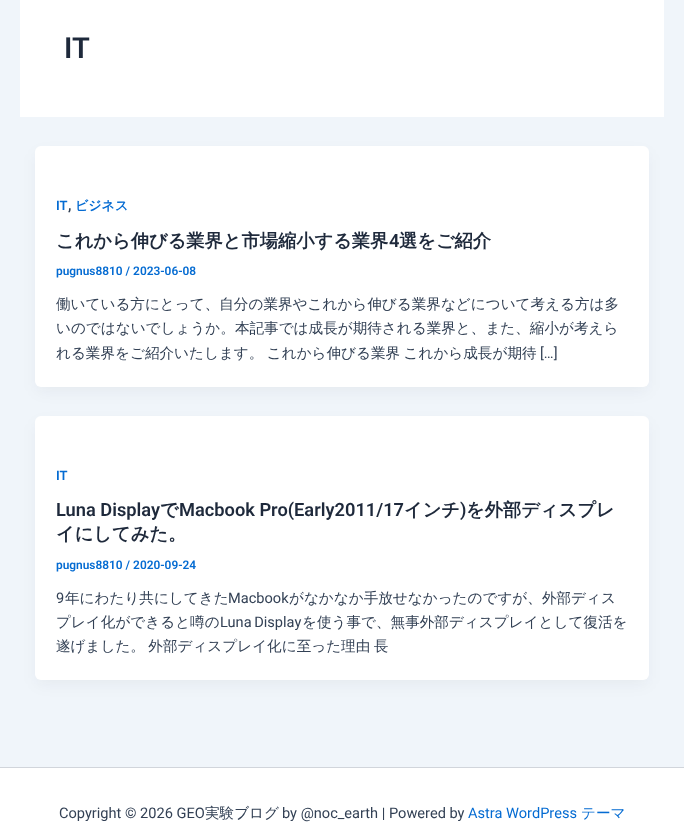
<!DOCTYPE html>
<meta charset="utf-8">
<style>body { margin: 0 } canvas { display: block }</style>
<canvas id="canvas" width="684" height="833"></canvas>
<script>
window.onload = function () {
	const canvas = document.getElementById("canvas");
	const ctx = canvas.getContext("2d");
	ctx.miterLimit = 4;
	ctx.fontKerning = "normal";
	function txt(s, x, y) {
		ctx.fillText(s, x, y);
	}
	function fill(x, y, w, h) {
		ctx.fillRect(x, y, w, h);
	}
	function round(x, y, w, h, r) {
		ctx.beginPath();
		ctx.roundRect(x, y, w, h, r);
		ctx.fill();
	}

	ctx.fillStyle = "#F0F5FA";
	fill(0, 0, 684, 833);
	ctx.fillStyle = "#FFFFFF";
	fill(20, 0, 644, 117);
	ctx.fillStyle = "rgba(16, 24, 40, 0.05)";
	ctx.filter = "blur(7.5px)";
	ctx.beginPath();
	ctx.roundRect(37, 154, 610, 237, 4);
	ctx.fill();
	ctx.filter = "none";
	ctx.fillStyle = "#FFFFFF";
	round(35, 146, 614, 241, 6);
	ctx.fillStyle = "rgba(16, 24, 40, 0.05)";
	ctx.filter = "blur(7.5px)";
	ctx.beginPath();
	ctx.roundRect(37, 424, 610, 260, 4);
	ctx.fill();
	ctx.filter = "none";
	ctx.fillStyle = "#FFFFFF";
	round(35, 416, 614, 264, 6);
	fill(0, 768, 684, 65);
	ctx.fillStyle = "#D1D5DB";
	fill(0, 767, 684, 1);
	ctx.font = "600 29px Roboto";
	ctx.fillStyle = "#1E293B";
	txt("IT", 64, 58);
	ctx.font = "600 13px Roboto";
	ctx.fillStyle = "#046BD2";
	txt("IT", 56, 210);
	ctx.font = "bold 13px WenQuanYi Zen Hei";
	txt("ビジネス", 75, 210);
	ctx.font = "600 14.6px Roboto";
	ctx.fillStyle = "#334155";
	txt(",", 68, 210);
	ctx.font = "bold 18.25px WenQuanYi Zen Hei";
	ctx.fillStyle = "#1E293B";
	txt("これから伸びる業界と市場縮小する業界", 56, 247);
	ctx.font = "600 18.25px Roboto";
	txt("4", 389, 247);
	ctx.font = "bold 18.25px WenQuanYi Zen Hei";
	txt("選をご紹介", 399, 247);
	ctx.font = "600 11.9px Roboto";
	ctx.fillStyle = "#046BD2";
	txt("pugnus8810 / 2023-06-08", 56, 275);
	ctx.font = "500 14.6px WenQuanYi Zen Hei";
	ctx.fillStyle = "#334155";
	txt("働いている方にとって、自分の業界やこれから伸びる業界などについて考える方は多", 56, 309);
	txt("いのではないでしょうか。本記事では成長が期待される業界と、また、縮小が考えら", 56, 333);
	ctx.wordSpacing = "-1px";
	txt("れる業界をご紹介いたします。 これから伸びる業界 これから成長が期待", 56, 358);
	ctx.wordSpacing = "0px";
	ctx.font = "14.6px Roboto";
	txt("[…]", 540, 358);
	ctx.font = "600 13px Roboto";
	ctx.fillStyle = "#046BD2";
	txt("IT", 56, 480);
	ctx.font = "600 18.25px Roboto";
	ctx.fillStyle = "#1E293B";
	txt("Luna Display", 56, 516);
	ctx.font = "bold 18.25px WenQuanYi Zen Hei";
	txt("で", 160, 516);
	ctx.font = "600 18.25px Roboto";
	txt("Macbook Pro(Early2011/17", 179, 516);
	ctx.font = "bold 18.25px WenQuanYi Zen Hei";
	txt("インチ", 404, 516);
	ctx.font = "600 18.25px Roboto";
	txt(")", 460, 516);
	ctx.font = "bold 18.25px WenQuanYi Zen Hei";
	txt("を外部ディスプレ", 466, 516);
	txt("イにしてみた。", 56, 540);
	ctx.font = "600 11.9px Roboto";
	ctx.fillStyle = "#046BD2";
	txt("pugnus8810 / 2020-09-24", 56, 569);
	ctx.font = "14.6px Roboto";
	ctx.fillStyle = "#334155";
	txt("9", 56, 603);
	ctx.font = "500 14.6px WenQuanYi Zen Hei";
	txt("年にわたり共にしてきた", 65, 603);
	ctx.font = "14.6px Roboto";
	txt("Macbook", 228, 603);
	ctx.font = "500 14.6px WenQuanYi Zen Hei";
	txt("がなかなか手放せなかったのですが、外部ディス", 289, 603);
	txt("プレイ化ができると噂の", 56, 627);
	ctx.wordSpacing = "-1px";
	ctx.font = "14.6px Roboto";
	txt("Luna Display", 220, 627);
	ctx.wordSpacing = "0px";
	ctx.font = "500 14.6px WenQuanYi Zen Hei";
	txt("を使う事で、無事外部ディスプレイとして復活を", 302, 627);
	ctx.wordSpacing = "-1px";
	txt("遂げました。 外部ディスプレイ化に至った理由 長", 56, 651);
	ctx.wordSpacing = "0px";
	ctx.font = "14.6px Roboto";
	txt("Copyright © 2026 GEO", 59, 818);
	ctx.font = "500 14.6px WenQuanYi Zen Hei";
	txt("実験ブログ", 205, 818);
	ctx.font = "14.6px Roboto";
	txt("by @noc_earth | Powered by", 282, 818);
	ctx.fillStyle = "#046BD2";
	txt("Astra WordPress", 468, 818);
	ctx.font = "500 14.6px WenQuanYi Zen Hei";
	txt("テーマ", 581, 818);
};
</script>
